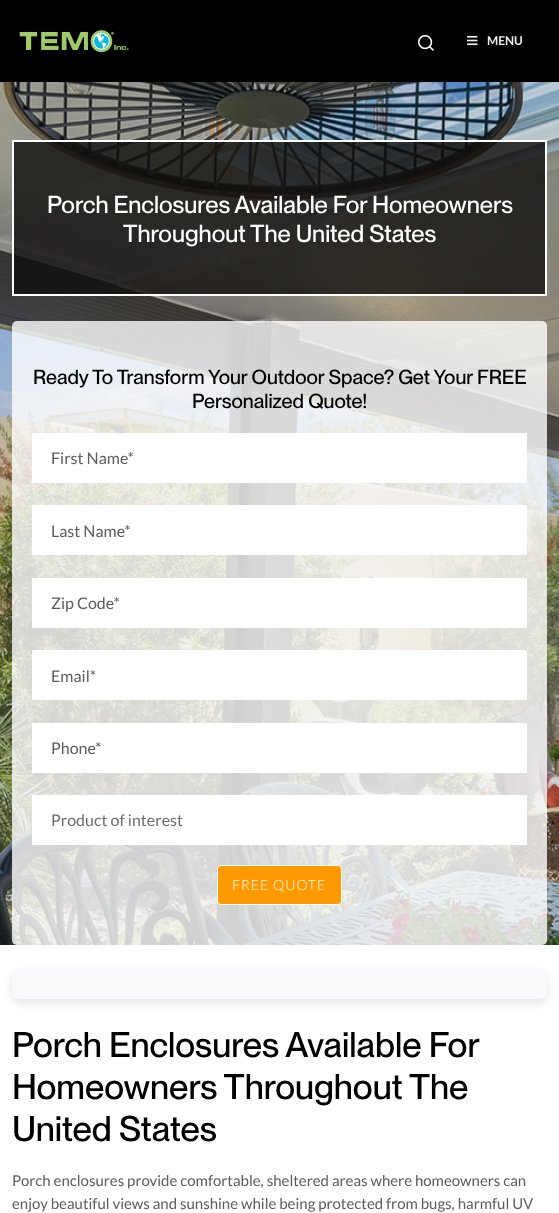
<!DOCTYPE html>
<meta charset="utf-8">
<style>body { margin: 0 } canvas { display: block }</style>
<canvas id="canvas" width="559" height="1213"></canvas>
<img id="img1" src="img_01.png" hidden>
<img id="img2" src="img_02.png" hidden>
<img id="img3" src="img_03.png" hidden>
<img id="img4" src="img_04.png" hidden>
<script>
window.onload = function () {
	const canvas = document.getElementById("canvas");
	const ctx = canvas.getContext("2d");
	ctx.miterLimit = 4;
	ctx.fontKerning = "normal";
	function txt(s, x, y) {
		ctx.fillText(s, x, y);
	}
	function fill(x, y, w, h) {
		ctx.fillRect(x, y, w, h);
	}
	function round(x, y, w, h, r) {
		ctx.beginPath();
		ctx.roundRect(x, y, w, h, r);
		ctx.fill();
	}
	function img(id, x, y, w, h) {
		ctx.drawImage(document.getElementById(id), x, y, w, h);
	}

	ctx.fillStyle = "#FFFFFF";
	fill(0, 0, 559, 1213);
	ctx.fillStyle = "#000000";
	fill(0, 0, 559, 82);
	img("img1", 19, 30, 110, 23);
	img("img2", 418, 35, 16, 16);
	img("img3", 467, 35, 11, 11);
	img("img4", 0, 82, 559, 863);
	ctx.fillStyle = "rgba(16, 14, 13, 0.8)";
	ctx.beginPath();
	ctx.rect(13, 141, 533, 154);
	ctx.fill();
	ctx.strokeStyle = "#FFFFFF";
	ctx.lineWidth = 2;
	ctx.stroke();
	ctx.fillStyle = "rgba(255, 255, 255, 0.8)";
	round(12, 321, 535, 624, 5);
	ctx.fillStyle = "#FFFFFF";
	ctx.beginPath();
	ctx.rect(32.5, 433.5, 494, 49);
	ctx.fill();
	ctx.lineWidth = 1;
	ctx.stroke();
	ctx.beginPath();
	ctx.rect(32.5, 505.5, 494, 49);
	ctx.fill();
	ctx.stroke();
	ctx.beginPath();
	ctx.rect(32.5, 578.5, 494, 49);
	ctx.fill();
	ctx.stroke();
	ctx.beginPath();
	ctx.rect(32.5, 650.5, 494, 49);
	ctx.fill();
	ctx.stroke();
	ctx.beginPath();
	ctx.rect(32.5, 723.5, 494, 49);
	ctx.fill();
	ctx.stroke();
	fill(32, 795, 495, 50);
	ctx.fillStyle = "#FF9900";
	ctx.beginPath();
	ctx.roundRect(217.5, 865.5, 124, 39, 3.5);
	ctx.fill();
	ctx.stroke();
	ctx.fillStyle = "rgba(0, 0, 0, 0.1)";
	ctx.filter = "blur(4px)";
	ctx.beginPath();
	ctx.roundRect(12, 973, 535, 30, 5);
	ctx.fill();
	ctx.filter = "none";
	ctx.fillStyle = "#F8F9FA";
	round(12, 969, 535, 30, 5);
	ctx.font = "bold 12px Lato";
	ctx.fillStyle = "#EEEEEE";
	txt("MENU", 487, 45);
	ctx.font = "500 24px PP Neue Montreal";
	ctx.fillStyle = "#FFFFFF";
	txt("Porch Enclosures Available For Homeowners", 47, 213);
	txt("Throughout The United States", 123, 242);
	ctx.font = "500 20px PP Neue Montreal";
	ctx.fillStyle = "#000000";
	txt("Ready To Transform Your Outdoor Space? Get Your FREE", 33, 384);
	txt("Personalized Quote!", 192, 408);
	ctx.font = "16px Lato";
	ctx.fillStyle = "#5C5C5C";
	txt("First Name*", 51, 464);
	txt("Last Name*", 51, 537);
	txt("Zip Code*", 51, 609);
	txt("Email*", 51, 682);
	txt("Phone*", 51, 754);
	ctx.fillStyle = "#6D6D6D";
	txt("Product of interest", 51, 826);
	ctx.letterSpacing = "1px";
	ctx.font = "300 14px Lato";
	ctx.fillStyle = "#FFFFFF";
	txt("FREE QUOTE", 232, 890);
	ctx.letterSpacing = "0px";
	ctx.font = "500 35px PP Neue Montreal";
	ctx.fillStyle = "#000000";
	txt("Porch Enclosures Available For", 12, 1057);
	txt("Homeowners Throughout The", 12, 1099);
	txt("United States", 12, 1141);
	ctx.font = "15px Lato";
	ctx.fillStyle = "#5C5C5C";
	txt("Porch enclosures provide comfortable, sheltered areas where homeowners can", 12, 1186);
	txt("enjoy beautiful views and sunshine while being protected from bugs, harmful UV", 12, 1209);
};
</script>
